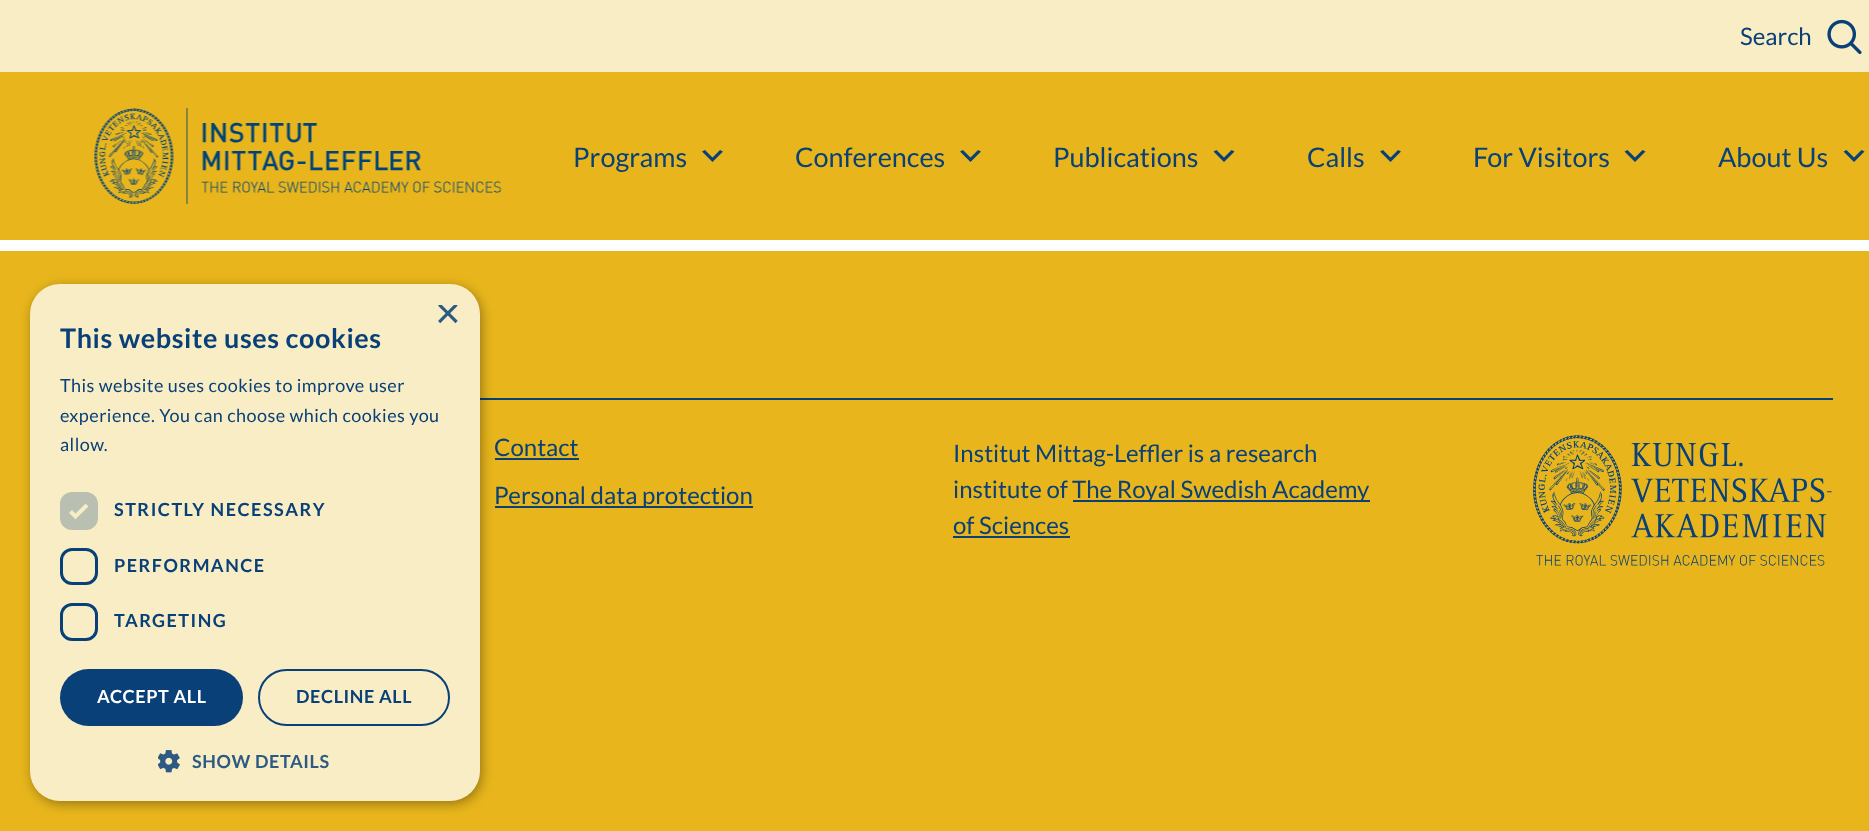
<!DOCTYPE html>
<meta charset="utf-8">
<style>body { margin: 0 } canvas { display: block }</style>
<canvas id="canvas" width="1869" height="831"></canvas>
<img id="img1" src="img_01.png" hidden>
<img id="img2" src="img_02.png" hidden>
<img id="img3" src="img_03.png" hidden>
<img id="img4" src="img_04.png" hidden>
<script>
window.onload = function () {
	const canvas = document.getElementById("canvas");
	const ctx = canvas.getContext("2d");
	ctx.miterLimit = 4;
	ctx.fontKerning = "normal";
	function txt(s, x, y) {
		ctx.fillText(s, x, y);
	}
	function fill(x, y, w, h) {
		ctx.fillRect(x, y, w, h);
	}
	function round(x, y, w, h, r) {
		ctx.beginPath();
		ctx.roundRect(x, y, w, h, r);
		ctx.fill();
	}
	function img(id, x, y, w, h) {
		ctx.drawImage(document.getElementById(id), x, y, w, h);
	}

	ctx.fillStyle = "#FFFFFF";
	fill(0, 0, 1869, 831);
	ctx.fillStyle = "#F9EDC6";
	fill(0, 0, 1869, 72);
	ctx.fillStyle = "#E8B61C";
	fill(0, 72, 1869, 168);
	img("img1", 94, 108, 408, 96);
	img("img2", 1827, 19, 35, 36);
	ctx.fillStyle = "#084077";
	ctx.beginPath();
	ctx.moveTo(705, 150);
	ctx.lineTo(712.5, 157.5);
	ctx.lineTo(720, 150);
	ctx.lineTo(723, 151.5);
	ctx.lineTo(712.5, 162);
	ctx.lineTo(702, 151.5);
	ctx.closePath();
	ctx.fill();
	ctx.beginPath();
	ctx.moveTo(963, 150);
	ctx.lineTo(970.5, 157.5);
	ctx.lineTo(978, 150);
	ctx.lineTo(981, 151.5);
	ctx.lineTo(970.5, 162);
	ctx.lineTo(960, 151.5);
	ctx.closePath();
	ctx.fill();
	ctx.beginPath();
	ctx.moveTo(1216.5, 150);
	ctx.lineTo(1224, 157.5);
	ctx.lineTo(1231.5, 150);
	ctx.lineTo(1234.5, 151.5);
	ctx.lineTo(1224, 162);
	ctx.lineTo(1213.5, 151.5);
	ctx.closePath();
	ctx.fill();
	ctx.beginPath();
	ctx.moveTo(1383, 150);
	ctx.lineTo(1390.5, 157.5);
	ctx.lineTo(1398, 150);
	ctx.lineTo(1401, 151.5);
	ctx.lineTo(1390.5, 162);
	ctx.lineTo(1380, 151.5);
	ctx.closePath();
	ctx.fill();
	ctx.beginPath();
	ctx.moveTo(1627.5, 150);
	ctx.lineTo(1635, 157.5);
	ctx.lineTo(1642.5, 150);
	ctx.lineTo(1645.5, 151.5);
	ctx.lineTo(1635, 162);
	ctx.lineTo(1624.5, 151.5);
	ctx.closePath();
	ctx.fill();
	ctx.beginPath();
	ctx.moveTo(1846.5, 150);
	ctx.lineTo(1854, 157.5);
	ctx.lineTo(1861.5, 150);
	ctx.lineTo(1864.5, 151.5);
	ctx.lineTo(1854, 162);
	ctx.lineTo(1843.5, 151.5);
	ctx.closePath();
	ctx.fill();
	ctx.fillStyle = "#E8B61C";
	fill(0, 251, 1869, 580);
	ctx.fillStyle = "#084077";
	fill(480, 398, 1353, 2);
	fill(495, 458, 84, 2);
	fill(495, 506, 258, 2);
	ctx.fillStyle = "rgba(0, 0, 0, 0.35)";
	ctx.filter = "blur(6px)";
	ctx.beginPath();
	ctx.roundRect(32, 287, 450, 517, 30);
	ctx.fill();
	ctx.filter = "none";
	ctx.fillStyle = "#F9EDC6";
	round(30, 284, 450, 517, 30);
	ctx.fillStyle = "#BAC0B1";
	round(60, 492, 38, 38, 12);
	ctx.beginPath();
	ctx.moveTo(70.5, 511.5);
	ctx.lineTo(75.5, 516.5);
	ctx.lineTo(87, 505);
	ctx.strokeStyle = "#F9EDC6";
	ctx.lineWidth = 3.9;
	ctx.stroke();
	ctx.beginPath();
	ctx.roundRect(61.5, 549.5, 35, 34, 10.5);
	ctx.strokeStyle = "#084077";
	ctx.lineWidth = 3;
	ctx.stroke();
	ctx.beginPath();
	ctx.roundRect(61.5, 604.5, 35, 35, 10.5);
	ctx.stroke();
	ctx.fillStyle = "#084077";
	round(60, 669, 183, 57, 28.5);
	ctx.beginPath();
	ctx.roundRect(259, 670, 190, 55, 27.5);
	ctx.lineWidth = 2;
	ctx.stroke();
	img("img3", 158, 750, 22, 23);
	fill(1073, 500, 297, 2);
	fill(953, 536, 117, 2);
	img("img4", 1533, 435, 299, 131);
	ctx.font = "24px Lato";
	txt("Search", 1740, 45);
	ctx.font = "27px Lato";
	txt("Programs", 573, 167);
	txt("Conferences", 795, 167);
	txt("Publications", 1053, 167);
	txt("Calls", 1307, 167);
	txt("For Visitors", 1473, 167);
	txt("About Us", 1718, 167);
	ctx.save();
	ctx.beginPath();
	ctx.rect(435, 305, 23, 22);
	ctx.clip();
	ctx.font = "44px Liberation Sans";
	ctx.fillStyle = "#2C5A83";
	txt("×", 435, 328);
	ctx.restore();
	ctx.letterSpacing = "0.6px";
	ctx.font = "bold 27px Lato";
	txt("This website uses cookies", 60, 348);
	ctx.letterSpacing = "0.45px";
	ctx.font = "18px Lato";
	txt("This website uses cookies to improve user", 60, 392);
	txt("experience. You can choose which cookies you", 60, 422);
	txt("allow.", 60, 451);
	ctx.letterSpacing = "1.5px";
	ctx.font = "bold 18px Lato";
	txt("STRICTLY NECESSARY", 114, 516);
	txt("PERFORMANCE", 114, 572);
	txt("TARGETING", 114, 627);
	ctx.letterSpacing = "0.6px";
	ctx.fillStyle = "#FFFFFF";
	txt("ACCEPT ALL", 97, 703);
	ctx.fillStyle = "#084077";
	txt("DECLINE ALL", 296, 703);
	ctx.fillStyle = "#2C5A83";
	txt("SHOW DETAILS", 192, 768);
	ctx.letterSpacing = "0px";
	ctx.font = "24px Lato";
	ctx.fillStyle = "#084077";
	txt("Contact", 494, 456);
	txt("Personal data protection", 494, 504);
	txt("Institut Mittag-Leffler is a research", 953, 462);
	txt("institute of", 953, 498);
	txt("The Royal Swedish Academy", 1072, 498);
	txt("of Sciences", 953, 534);
};
</script>
